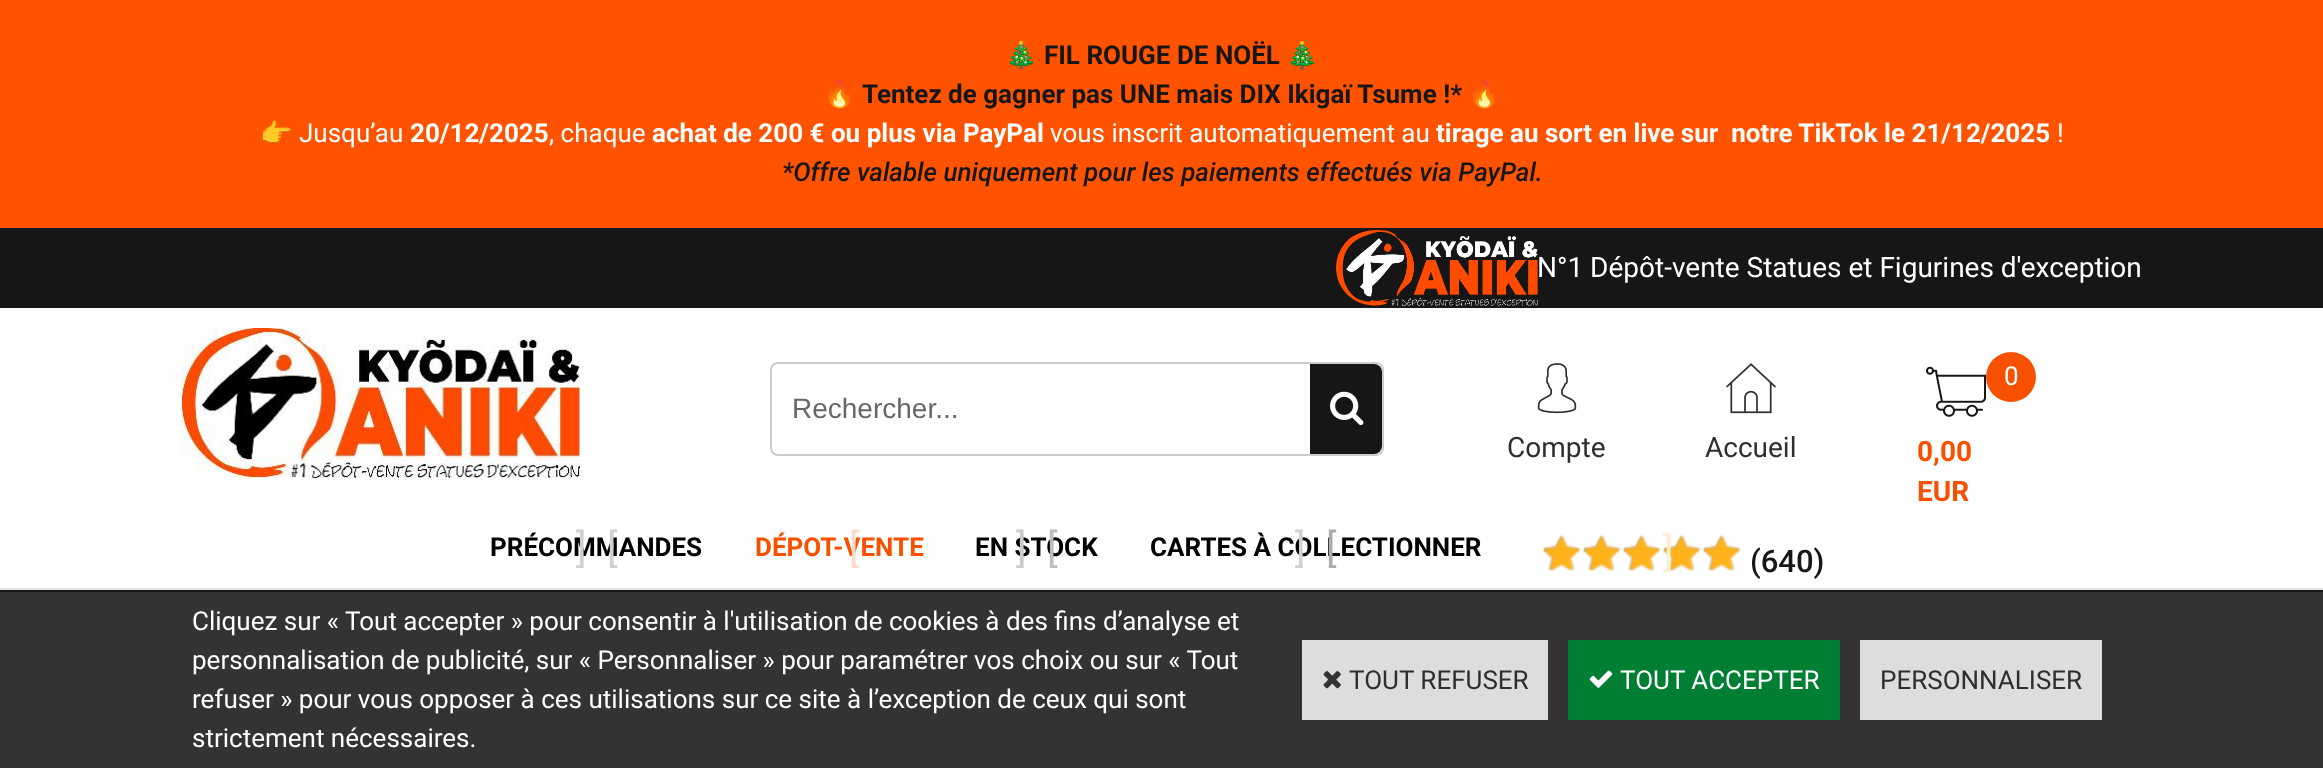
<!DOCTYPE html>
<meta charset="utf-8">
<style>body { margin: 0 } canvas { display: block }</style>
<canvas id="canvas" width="2323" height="768"></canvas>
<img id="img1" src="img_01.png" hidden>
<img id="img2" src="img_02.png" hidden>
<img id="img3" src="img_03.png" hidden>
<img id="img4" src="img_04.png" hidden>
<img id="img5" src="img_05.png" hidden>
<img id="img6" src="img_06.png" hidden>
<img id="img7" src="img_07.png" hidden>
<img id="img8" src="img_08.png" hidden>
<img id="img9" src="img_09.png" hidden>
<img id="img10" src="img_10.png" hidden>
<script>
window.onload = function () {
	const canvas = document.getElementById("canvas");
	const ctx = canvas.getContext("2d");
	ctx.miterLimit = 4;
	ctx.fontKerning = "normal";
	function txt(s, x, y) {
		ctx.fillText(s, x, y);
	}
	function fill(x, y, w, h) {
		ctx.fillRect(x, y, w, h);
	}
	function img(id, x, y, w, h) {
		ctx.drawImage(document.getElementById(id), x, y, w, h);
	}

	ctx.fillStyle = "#161616";
	fill(0, 0, 2323, 768);
	ctx.fillStyle = "#FF5300";
	fill(0, 0, 2323, 228);
	ctx.fillStyle = "#FFFFFF";
	fill(0, 308, 2323, 280);
	ctx.fillStyle = "#E2E2E2";
	fill(0, 588, 2323, 2);
	img("img1", 1336, 230, 202, 76);
	img("img2", 182, 328, 398, 150);
	ctx.beginPath();
	ctx.roundRect(771, 363, 612, 92, 7);
	ctx.strokeStyle = "#CCCCCC";
	ctx.lineWidth = 2;
	ctx.stroke();
	ctx.fillStyle = "#161616";
	ctx.beginPath();
	ctx.roundRect(1310, 364, 72, 90, [0, 8, 8, 0]);
	ctx.fill();
	img("img3", 1330, 391, 34, 35);
	img("img4", 1537, 363, 40, 51);
	img("img5", 1726, 363, 50, 51);
	img("img6", 1926, 366, 60, 51);
	ctx.fillStyle = "#F75100";
	ctx.beginPath();
	ctx.arc(2011, 377, 25, 0, Math.PI * 2);
	ctx.fill();
	img("img7", 1543, 535, 198, 36);
	img("img8", 1543, 535, 197, 36);
	ctx.fillStyle = "#333333";
	fill(0, 592, 2323, 176);
	ctx.fillStyle = "#DDDDDD";
	fill(1302, 640, 246, 80);
	img("img9", 1323, 671, 18, 18);
	ctx.fillStyle = "#007E33";
	fill(1568, 640, 272, 80);
	img("img10", 1589, 670, 24, 18);
	ctx.fillStyle = "#DDDDDD";
	fill(1860, 640, 242, 80);
	ctx.font = "26px Noto Color Emoji";
	ctx.fillStyle = "#161616";
	txt("🎄", 1005, 64);
	ctx.font = "bold 26px Roboto";
	txt("FIL ROUGE DE NOËL", 1044, 64);
	ctx.font = "26px Noto Color Emoji";
	txt("🎄", 1286, 64);
	txt("🔥", 823, 103);
	ctx.font = "bold 26px Roboto";
	txt("Tentez de gagner pas UNE mais DIX Ikigaï Tsume !*", 862, 103);
	ctx.font = "26px Noto Color Emoji";
	txt("🔥", 1468, 103);
	ctx.fillStyle = "#FFFFFF";
	txt("👉", 260, 142);
	ctx.font = "26px Roboto";
	txt("Jusqu’au", 299, 142);
	ctx.font = "bold 26px Roboto";
	txt("20/12/2025", 410, 142);
	ctx.font = "26px Roboto";
	txt(", chaque", 549, 142);
	ctx.font = "bold 26px Roboto";
	txt("achat de 200 € ou plus via PayPal", 652, 142);
	ctx.font = "26px Roboto";
	txt("vous inscrit automatiquement au", 1050, 142);
	ctx.font = "bold 26px Roboto";
	txt("tirage au sort en live sur  notre TikTok le 21/12/2025", 1436, 142);
	ctx.font = "26px Roboto";
	txt("!", 2057, 142);
	ctx.font = "italic 500 26px Roboto";
	ctx.fillStyle = "#161616";
	txt("*Offre valable uniquement pour les paiements effectués via PayPal.", 782, 181);
	ctx.font = "28px Roboto";
	ctx.fillStyle = "#FFFFFF";
	txt("N°1 Dépôt-vente Statues et Figurines d'exception", 1537, 277);
	ctx.font = "28px Liberation Sans";
	ctx.fillStyle = "#666666";
	txt("Rechercher...", 792, 418);
	ctx.font = "28px Roboto";
	ctx.fillStyle = "#2E2E2E";
	txt("Compte", 1507, 457);
	txt("Accueil", 1705, 457);
	ctx.font = "26px Roboto";
	ctx.fillStyle = "#FFFFFF";
	txt("0", 2004, 385);
	ctx.font = "bold 28px Roboto";
	ctx.fillStyle = "#F75100";
	txt("0,00", 1917, 461);
	txt("EUR", 1917, 501);
	ctx.font = "bold 26px Roboto";
	ctx.fillStyle = "#000000";
	txt("PRÉCOMMANDES", 490, 556);
	ctx.font = "40px Roboto";
	ctx.fillStyle = "#D1D1D1";
	txt("]", 576, 562);
	txt("[", 607, 562);
	ctx.font = "bold 26px Roboto";
	ctx.fillStyle = "#F75100";
	txt("DÉPOT-VENTE", 755, 556);
	ctx.font = "40px Roboto";
	ctx.fillStyle = "#FDDBCA";
	txt("[", 849, 562);
	ctx.font = "bold 26px Roboto";
	ctx.fillStyle = "#000000";
	txt("EN STOCK", 975, 556);
	ctx.font = "40px Roboto";
	ctx.fillStyle = "#CBCBCB";
	txt("]", 1016, 562);
	ctx.fillStyle = "#BDBDBD";
	txt("[", 1047, 562);
	ctx.font = "bold 26px Roboto";
	ctx.fillStyle = "#000000";
	txt("CARTES À COLLECTIONNER", 1150, 556);
	ctx.font = "40px Roboto";
	ctx.fillStyle = "#D1D1D1";
	txt("]", 1295, 562);
	ctx.fillStyle = "#ACACAC";
	txt("[", 1326, 562);
	ctx.fillStyle = "#FAEDD4";
	txt("]", 1663, 566);
	ctx.font = "500 31px Roboto";
	ctx.fillStyle = "#161616";
	txt("(640)", 1750, 572);
	ctx.font = "26px Roboto";
	ctx.fillStyle = "#FFFFFF";
	txt("Cliquez sur « Tout accepter » pour consentir à l'utilisation de cookies à des fins d’analyse et", 192, 630);
	txt("personnalisation de publicité, sur « Personnaliser » pour paramétrer vos choix ou sur « Tout", 192, 669);
	txt("refuser » pour vous opposer à ces utilisations sur ce site à l’exception de ceux qui sont", 192, 708);
	txt("strictement nécessaires.", 192, 747);
	ctx.fillStyle = "#2E2E2E";
	txt("TOUT REFUSER", 1349, 689);
	ctx.fillStyle = "#FFFFFF";
	txt("TOUT ACCEPTER", 1620, 689);
	ctx.fillStyle = "#2E2E2E";
	txt("PERSONNALISER", 1880, 689);
};
</script>
